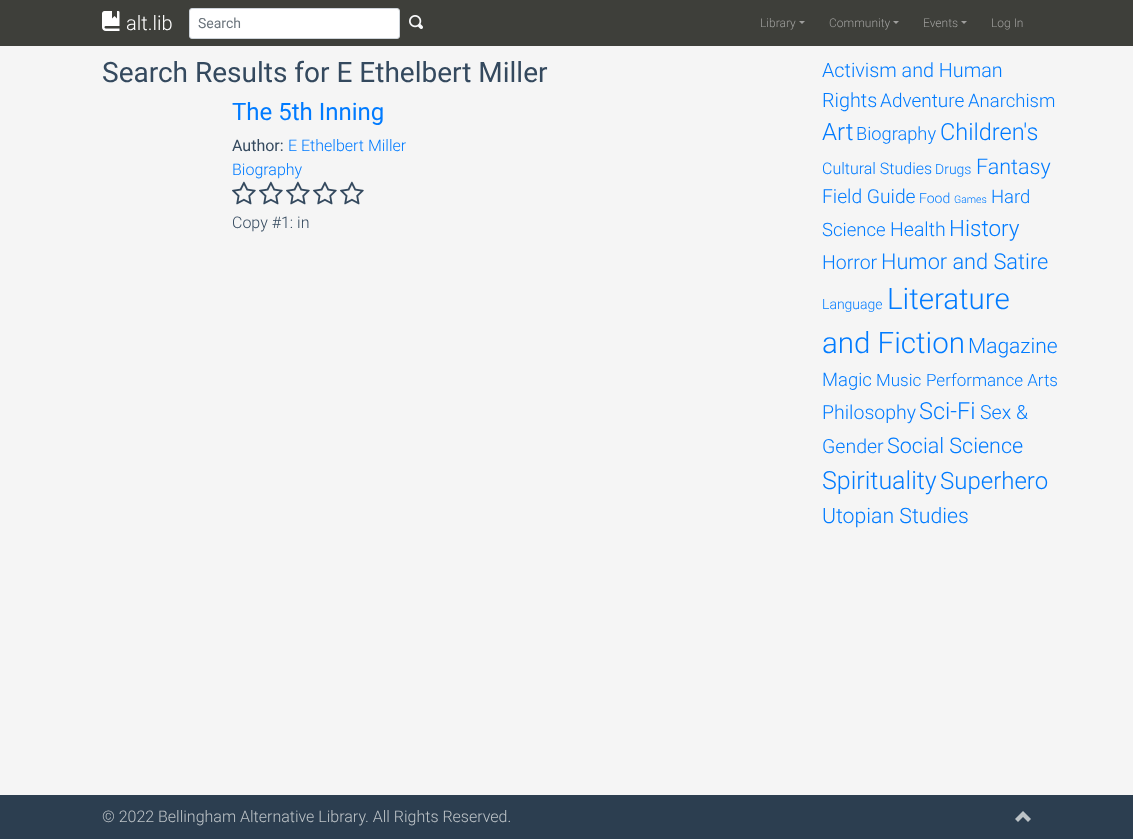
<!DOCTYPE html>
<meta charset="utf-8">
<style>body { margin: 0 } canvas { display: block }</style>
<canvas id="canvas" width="1133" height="839"></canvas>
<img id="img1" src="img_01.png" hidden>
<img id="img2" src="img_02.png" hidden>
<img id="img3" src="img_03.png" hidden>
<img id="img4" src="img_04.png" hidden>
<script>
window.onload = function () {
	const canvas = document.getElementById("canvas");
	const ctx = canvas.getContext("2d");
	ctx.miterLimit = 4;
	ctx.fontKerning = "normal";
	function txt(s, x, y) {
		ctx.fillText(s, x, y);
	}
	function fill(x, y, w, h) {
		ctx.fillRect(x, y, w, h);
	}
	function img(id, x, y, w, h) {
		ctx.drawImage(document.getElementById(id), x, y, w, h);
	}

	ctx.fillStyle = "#F5F5F5";
	fill(0, 0, 1133, 839);
	ctx.fillStyle = "#3E3F3A";
	fill(0, 0, 1133, 46);
	img("img1", 102, 11, 18, 20);
	ctx.fillStyle = "#FFFFFF";
	ctx.beginPath();
	ctx.roundRect(189.5, 8.5, 210, 30, 2.5);
	ctx.fill();
	ctx.strokeStyle = "#CED4DA";
	ctx.stroke();
	img("img2", 409, 15, 14, 14);
	ctx.fillStyle = "#9F9F9D";
	ctx.beginPath();
	ctx.moveTo(799, 21);
	ctx.lineTo(805, 21);
	ctx.lineTo(802, 24);
	ctx.closePath();
	ctx.fill();
	ctx.beginPath();
	ctx.moveTo(893, 21);
	ctx.lineTo(899, 21);
	ctx.lineTo(896, 24);
	ctx.closePath();
	ctx.fill();
	ctx.beginPath();
	ctx.moveTo(961, 21);
	ctx.lineTo(967, 21);
	ctx.lineTo(964, 24);
	ctx.closePath();
	ctx.fill();
	img("img3", 232, 181, 24, 24);
	img("img3", 259, 181, 24, 24);
	img("img3", 286, 181, 24, 24);
	img("img3", 313, 181, 24, 24);
	img("img3", 340, 181, 24, 24);
	ctx.fillStyle = "#2C3E50";
	fill(0, 795, 1133, 44);
	img("img4", 1015, 811, 16, 11);
	ctx.font = "300 20px Roboto";
	ctx.fillStyle = "#FFFFFF";
	txt("alt.lib", 126, 30);
	ctx.font = "14px Roboto";
	ctx.fillStyle = "#6C757D";
	txt("Search", 198, 28);
	ctx.font = "300 12px Roboto";
	ctx.fillStyle = "#9F9F9D";
	txt("Library", 760, 27);
	txt("Community", 829, 27);
	txt("Events", 923, 27);
	txt("Log In", 991, 27);
	ctx.font = "28px Roboto";
	ctx.fillStyle = "#34495E";
	txt("Search Results for E Ethelbert Miller", 102, 82);
	ctx.font = "24px Roboto";
	ctx.fillStyle = "#007BFF";
	txt("The 5th Inning", 232, 120);
	ctx.font = "16px Roboto";
	ctx.fillStyle = "#34495E";
	txt("Author:", 232, 151);
	ctx.font = "300 16px Roboto";
	ctx.fillStyle = "#007BFF";
	txt("E Ethelbert Miller", 288, 151);
	txt("Biography", 232, 175);
	ctx.fillStyle = "#34495E";
	txt("Copy #1: in", 232, 228);
	ctx.font = "300 19.75px Roboto";
	ctx.fillStyle = "#007BFF";
	txt("Activism and Human", 822, 77);
	txt("Rights", 822, 107);
	ctx.font = "300 19px Roboto";
	txt("Adventure", 880, 107);
	ctx.font = "300 18.5px Roboto";
	txt("Anarchism", 968, 107);
	ctx.font = "300 24px Roboto";
	txt("Art", 822, 140);
	ctx.font = "300 18.25px Roboto";
	txt("Biography", 856, 140);
	ctx.font = "300 23.5px Roboto";
	txt("Children's", 940, 140);
	ctx.font = "300 16px Roboto";
	txt("Cultural Studies", 822, 174);
	ctx.font = "300 14px Roboto";
	txt("Drugs", 935, 174);
	ctx.font = "300 21.5px Roboto";
	txt("Fantasy", 976, 174);
	ctx.font = "300 19.25px Roboto";
	txt("Field Guide", 822, 203);
	ctx.font = "300 14px Roboto";
	txt("Food", 919, 203);
	ctx.font = "300 10.5px Roboto";
	txt("Games", 954, 203);
	ctx.font = "300 18.5px Roboto";
	txt("Hard", 991, 203);
	txt("Science", 822, 236);
	ctx.font = "300 19.5px Roboto";
	txt("Health", 890, 236);
	ctx.font = "300 22.5px Roboto";
	txt("History", 949, 236);
	ctx.font = "300 19.5px Roboto";
	txt("Horror", 822, 269);
	ctx.font = "300 21.75px Roboto";
	txt("Humor and Satire", 881, 269);
	ctx.font = "300 14px Roboto";
	txt("Language", 822, 309);
	ctx.font = "300 29.5px Roboto";
	txt("Literature", 887, 309);
	txt("and Fiction", 822, 353);
	ctx.font = "300 21px Roboto";
	txt("Magazine", 968, 353);
	ctx.font = "300 18.5px Roboto";
	txt("Magic", 822, 386);
	ctx.font = "300 17px Roboto";
	txt("Music", 876, 386);
	txt("Performance Arts", 926, 386);
	ctx.font = "300 19.5px Roboto";
	txt("Philosophy", 822, 419);
	ctx.font = "300 23.5px Roboto";
	txt("Sci-Fi", 919, 419);
	ctx.font = "300 19.5px Roboto";
	txt("Sex &", 980, 419);
	txt("Gender", 822, 453);
	ctx.font = "300 21.5px Roboto";
	txt("Social Science", 887, 453);
	ctx.font = "300 25px Roboto";
	txt("Spirituality", 822, 489);
	ctx.font = "300 24px Roboto";
	txt("Superhero", 940, 489);
	ctx.font = "300 21.25px Roboto";
	txt("Utopian Studies", 822, 523);
	ctx.font = "300 16px Roboto";
	ctx.fillStyle = "#BDC3C7";
	txt("© 2022", 102, 822);
	txt("Bellingham Alternative Library", 158, 822);
	txt(". All Rights Reserved.", 365, 822);
};
</script>
